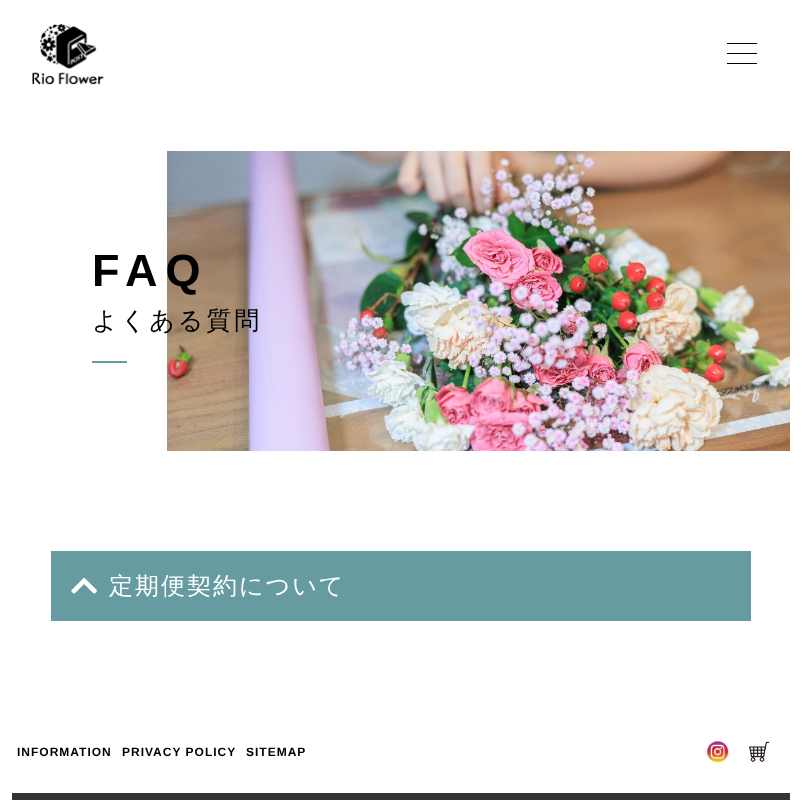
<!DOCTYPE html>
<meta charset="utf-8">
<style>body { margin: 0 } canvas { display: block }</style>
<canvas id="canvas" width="802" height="800"></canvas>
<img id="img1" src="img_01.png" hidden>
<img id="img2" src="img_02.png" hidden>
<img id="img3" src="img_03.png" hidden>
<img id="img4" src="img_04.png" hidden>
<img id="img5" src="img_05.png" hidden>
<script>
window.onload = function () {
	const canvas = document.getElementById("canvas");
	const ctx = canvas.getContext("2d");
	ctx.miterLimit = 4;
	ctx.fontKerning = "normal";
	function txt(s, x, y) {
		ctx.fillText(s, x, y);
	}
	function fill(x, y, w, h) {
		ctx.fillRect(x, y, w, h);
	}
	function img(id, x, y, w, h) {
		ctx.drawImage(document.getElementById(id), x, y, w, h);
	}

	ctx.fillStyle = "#FFFFFF";
	fill(0, 0, 802, 800);
	img("img1", 32, 23, 72, 62);
	ctx.fillStyle = "#000000";
	fill(727, 43, 30, 1);
	fill(727, 53, 30, 1);
	fill(727, 63, 30, 1);
	img("img2", 167, 151, 623, 300);
	ctx.fillStyle = "#669CA1";
	fill(92, 361, 35, 2);
	fill(51, 551, 700, 70);
	img("img3", 71, 578, 26, 16);
	img("img4", 707, 741, 22, 22);
	img("img5", 749, 741, 21, 21);
	ctx.fillStyle = "#333333";
	fill(12, 793, 778, 7);
	ctx.letterSpacing = "8px";
	ctx.font = "bold 45px Liberation Sans";
	ctx.fillStyle = "#000000";
	txt("FAQ", 92, 286);
	ctx.letterSpacing = "3px";
	ctx.font = "500 25px WenQuanYi Zen Hei";
	txt("よくある質問", 92, 329);
	ctx.letterSpacing = "2px";
	ctx.font = "500 24px WenQuanYi Zen Hei";
	ctx.fillStyle = "#FFFFFF";
	txt("定期便契約について", 109, 594);
	ctx.letterSpacing = "1px";
	ctx.font = "bold 12px Liberation Sans";
	ctx.fillStyle = "#000000";
	txt("INFORMATION", 17, 756);
	txt("PRIVACY POLICY", 122, 756);
	txt("SITEMAP", 246, 756);
};
</script>
